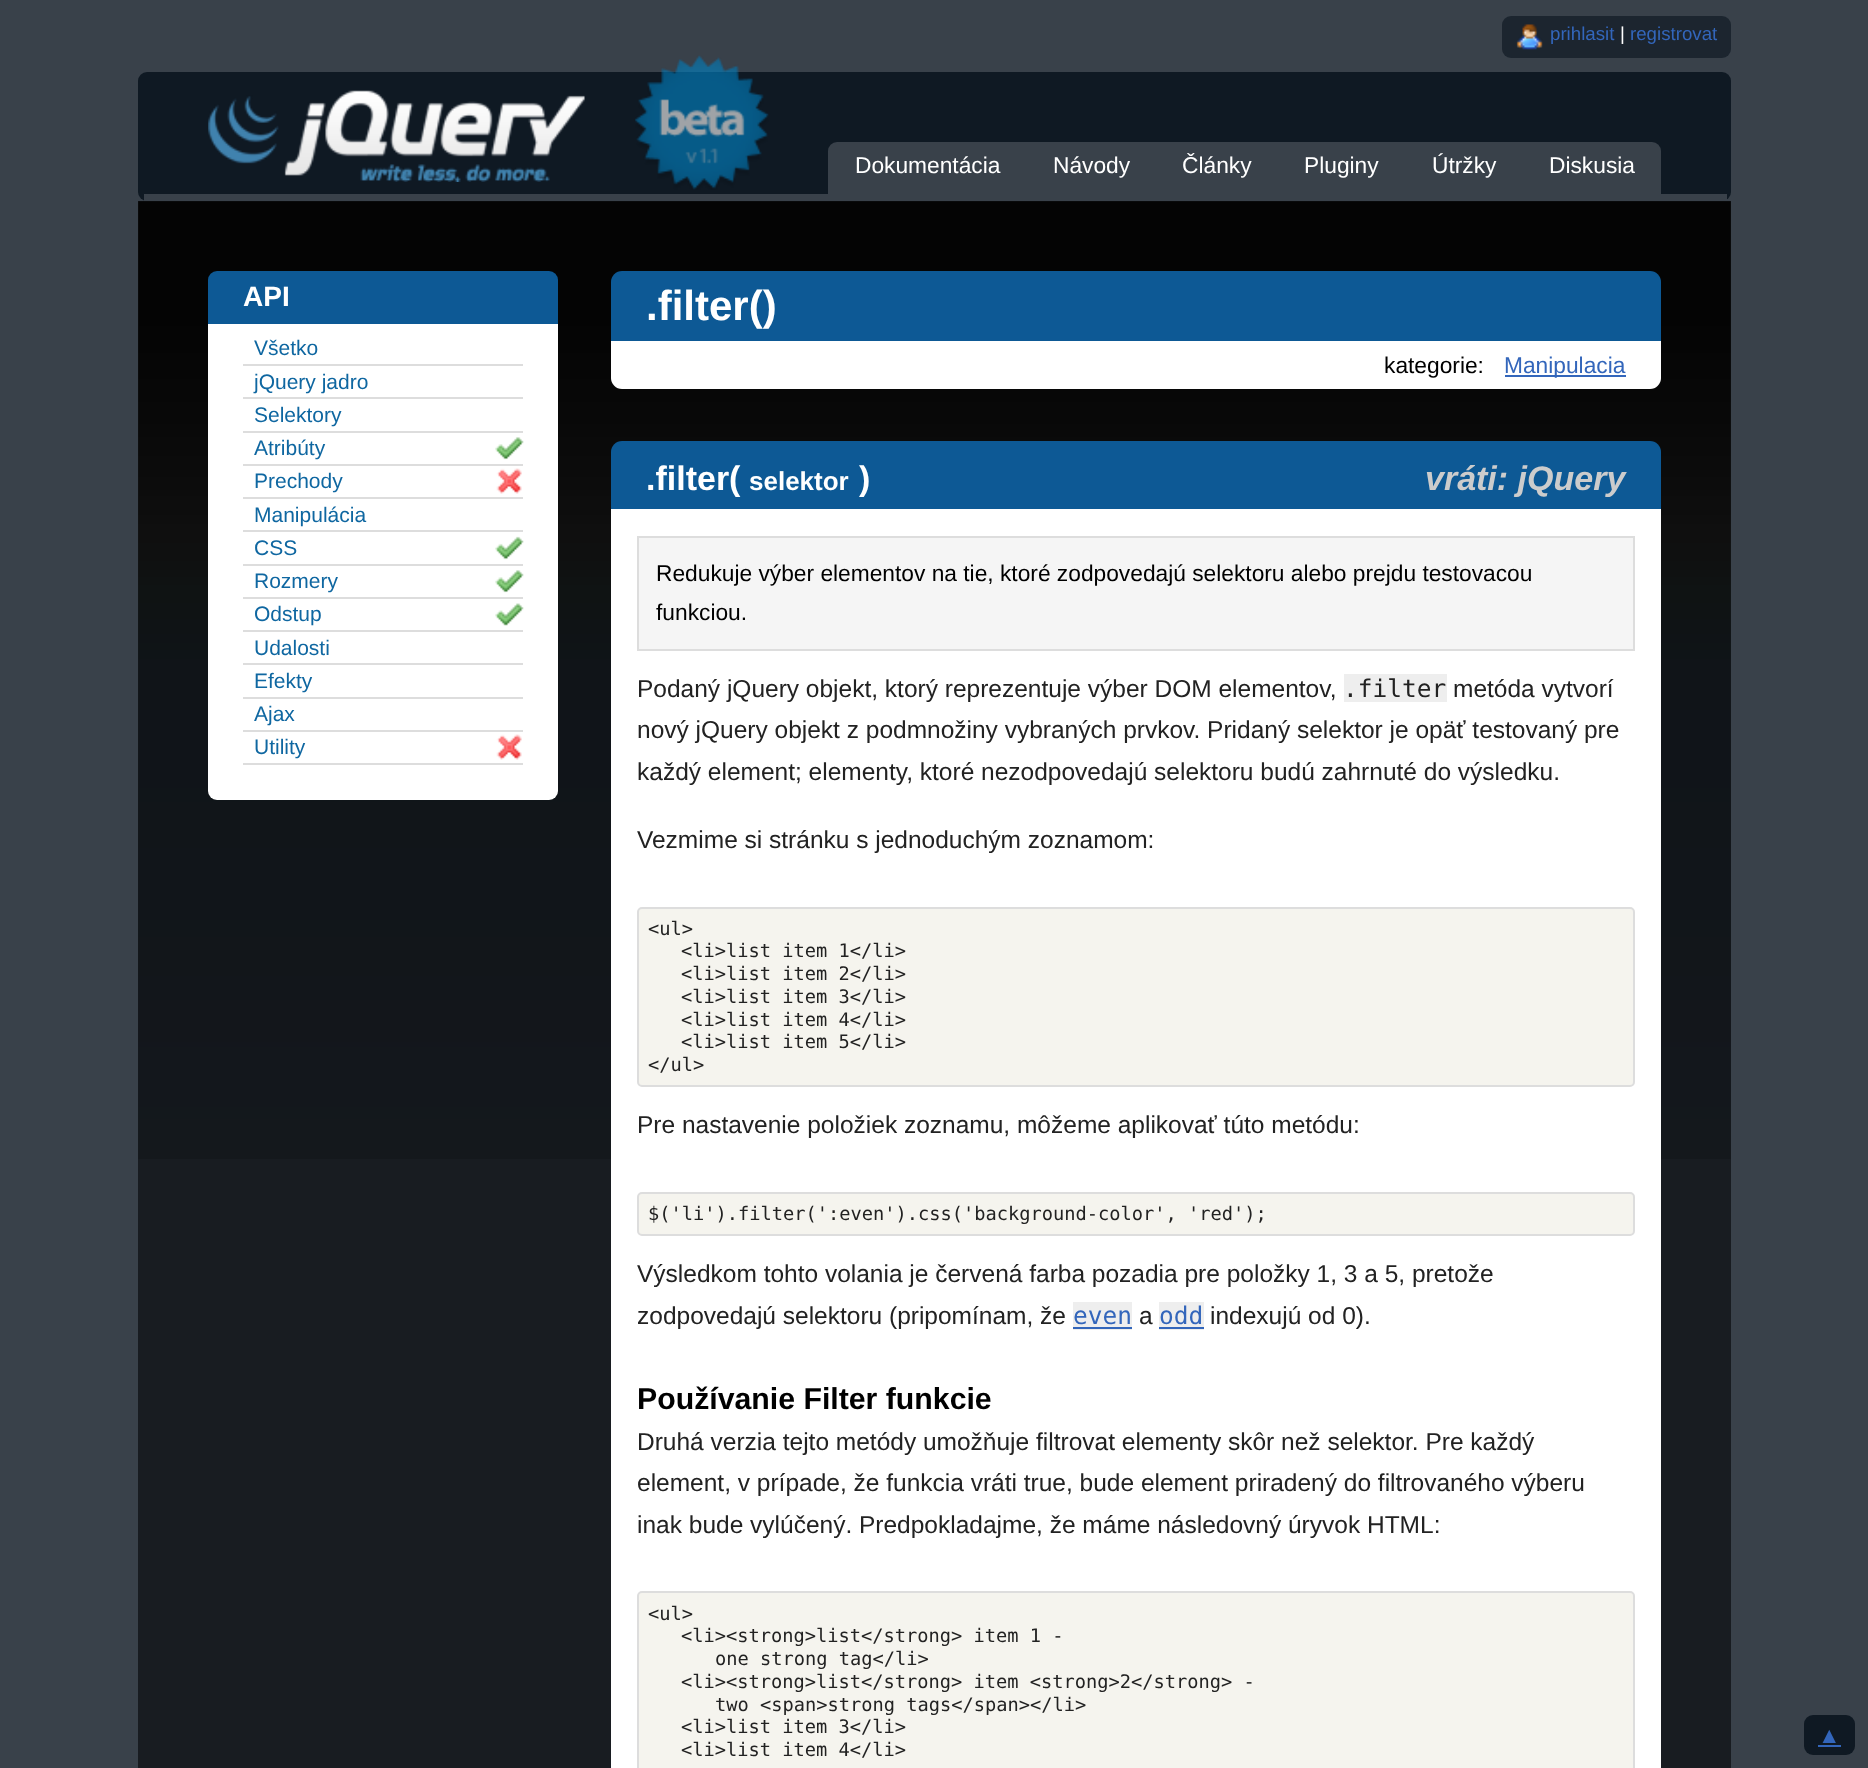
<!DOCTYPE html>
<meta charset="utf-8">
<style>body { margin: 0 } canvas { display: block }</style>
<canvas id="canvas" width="1868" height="1768"></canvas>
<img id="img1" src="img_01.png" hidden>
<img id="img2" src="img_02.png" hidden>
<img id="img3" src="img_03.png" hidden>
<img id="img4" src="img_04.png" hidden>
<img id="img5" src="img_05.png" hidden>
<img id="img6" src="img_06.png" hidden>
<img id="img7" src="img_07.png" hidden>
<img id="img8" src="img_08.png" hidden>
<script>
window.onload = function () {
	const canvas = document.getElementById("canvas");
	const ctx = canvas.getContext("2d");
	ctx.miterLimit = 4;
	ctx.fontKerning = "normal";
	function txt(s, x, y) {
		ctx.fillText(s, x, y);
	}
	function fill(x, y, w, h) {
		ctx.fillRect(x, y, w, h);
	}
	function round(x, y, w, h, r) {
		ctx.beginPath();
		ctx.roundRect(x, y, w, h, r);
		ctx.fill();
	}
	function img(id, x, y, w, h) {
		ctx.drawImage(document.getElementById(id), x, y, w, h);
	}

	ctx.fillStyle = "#39414A";
	fill(0, 0, 1868, 1768);
	ctx.fillStyle = "#1C252F";
	round(1502, 16, 229, 42, 9);
	img("img1", 1516, 24, 27, 26);
	ctx.fillStyle = "#0F1923";
	round(138, 72, 1593, 129, 9);
	ctx.fillStyle = "#39414A";
	fill(144, 194, 1583, 7);
	img("img2", 208, 90, 377, 92);
	img("img3", 635, 55, 134, 135);
	ctx.beginPath();
	ctx.roundRect(828, 142, 833, 58, [9, 9, 0, 0]);
	ctx.fill();
	ctx.fillStyle = "#181C21";
	fill(138, 201, 1593, 1567);
	img("img4", 138, 201, 1593, 958);
	ctx.fillStyle = "#0D5995";
	ctx.beginPath();
	ctx.roundRect(208, 271, 350, 53, [9, 9, 0, 0]);
	ctx.fill();
	ctx.fillStyle = "#FFFFFF";
	ctx.beginPath();
	ctx.roundRect(208, 324, 350, 476, [0, 0, 9, 9]);
	ctx.fill();
	ctx.fillStyle = "#DDDDDD";
	fill(243, 364, 280, 2);
	fill(243, 397, 280, 2);
	fill(243, 431, 280, 2);
	img("img5", 495, 437, 29, 23);
	fill(243, 464, 280, 2);
	img("img6", 496, 468, 26, 26);
	fill(243, 497, 280, 2);
	fill(243, 530, 280, 2);
	img("img7", 495, 536, 29, 24);
	fill(243, 564, 280, 2);
	img("img5", 495, 570, 29, 23);
	fill(243, 597, 280, 2);
	img("img8", 495, 603, 29, 23);
	fill(243, 630, 280, 2);
	fill(243, 663, 280, 2);
	fill(243, 697, 280, 2);
	fill(243, 730, 280, 2);
	img("img6", 496, 734, 26, 26);
	fill(243, 763, 280, 2);
	ctx.fillStyle = "#0D5995";
	ctx.beginPath();
	ctx.roundRect(611, 271, 1050, 70, [11, 11, 0, 0]);
	ctx.fill();
	ctx.fillStyle = "#FFFFFF";
	ctx.beginPath();
	ctx.roundRect(611, 341, 1050, 48, [0, 0, 11, 11]);
	ctx.fill();
	ctx.fillStyle = "#3366BB";
	fill(1505, 375, 121, 2);
	ctx.fillStyle = "#0D5995";
	ctx.beginPath();
	ctx.roundRect(611, 441, 1050, 68, [11, 11, 0, 0]);
	ctx.fill();
	ctx.fillStyle = "#FFFFFF";
	fill(611, 509, 1050, 1259);
	ctx.fillStyle = "#F5F5F5";
	ctx.beginPath();
	ctx.rect(638, 537, 996, 113);
	ctx.fill();
	ctx.strokeStyle = "#DDDDDD";
	ctx.lineWidth = 2;
	ctx.stroke();
	ctx.fillStyle = "#EEEEEE";
	fill(1344, 674, 103, 28);
	ctx.fillStyle = "#F5F4EE";
	ctx.beginPath();
	ctx.roundRect(638, 908, 996, 178, 4);
	ctx.fill();
	ctx.stroke();
	ctx.beginPath();
	ctx.roundRect(638, 1193, 996, 42, 4);
	ctx.fill();
	ctx.stroke();
	ctx.fillStyle = "#EEEEEE";
	fill(1073, 1302, 59, 28);
	ctx.fillStyle = "#3366BB";
	fill(1073, 1327, 59, 2);
	ctx.fillStyle = "#EEEEEE";
	fill(1159, 1302, 45, 28);
	ctx.fillStyle = "#3366BB";
	fill(1159, 1327, 45, 2);
	ctx.fillStyle = "#F5F4EE";
	ctx.beginPath();
	ctx.roundRect(638, 1592, 996, 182, 4);
	ctx.fill();
	ctx.stroke();
	ctx.fillStyle = "#0F1923";
	round(1804, 1715, 51, 40, 9);
	ctx.fillStyle = "#3366BB";
	fill(1818, 1745, 23, 2);
	ctx.font = "18.7px Liberation Sans";
	txt("prihlasit", 1550, 40);
	ctx.fillStyle = "#FFFFFF";
	txt("|", 1620, 40);
	ctx.fillStyle = "#3366BB";
	txt("registrovat", 1630, 40);
	ctx.font = "22.75px Liberation Sans";
	ctx.fillStyle = "#FFFFFF";
	txt("Dokumentácia", 855, 173);
	txt("Návody", 1053, 173);
	txt("Články", 1182, 173);
	txt("Pluginy", 1304, 173);
	txt("Útržky", 1432, 173);
	txt("Diskusia", 1549, 173);
	ctx.font = "bold 28px Liberation Sans";
	txt("API", 243, 306);
	ctx.font = "21px Liberation Sans";
	ctx.fillStyle = "#0F67A1";
	txt("Všetko", 254, 355);
	txt("jQuery jadro", 254, 389);
	txt("Selektory", 254, 422);
	txt("Atribúty", 254, 455);
	txt("Prechody", 254, 488);
	txt("Manipulácia", 254, 522);
	txt("CSS", 254, 555);
	txt("Rozmery", 254, 588);
	txt("Odstup", 254, 621);
	txt("Udalosti", 254, 655);
	txt("Efekty", 254, 688);
	txt("Ajax", 254, 721);
	txt("Utility", 254, 754);
	ctx.font = "bold 42px Liberation Sans";
	ctx.fillStyle = "#FFFFFF";
	txt(".filter()", 646, 320);
	ctx.font = "22.75px Liberation Sans";
	ctx.fillStyle = "#000000";
	txt("kategorie:", 1384, 373);
	ctx.fillStyle = "#3366BB";
	txt("Manipulacia", 1504, 373);
	ctx.font = "bold 34px Liberation Sans";
	ctx.fillStyle = "#FFFFFF";
	txt(".filter(", 646, 490);
	ctx.font = "bold 26px Liberation Sans";
	txt("selektor", 749, 490);
	ctx.font = "bold 34px Liberation Sans";
	txt(")", 859, 490);
	ctx.font = "italic bold 34px Liberation Sans";
	ctx.fillStyle = "#CCCCCC";
	txt("vráti: jQuery", 1425, 490);
	ctx.font = "22.75px Liberation Sans";
	ctx.fillStyle = "#000000";
	txt("Redukuje výber elementov na tie, ktoré zodpovedajú selektoru alebo prejdu testovacou", 656, 581);
	txt("funkciou.", 656, 620);
	ctx.font = "24.5px Liberation Sans";
	ctx.fillStyle = "#222222";
	txt("Podaný jQuery objekt, ktorý reprezentuje výber DOM elementov,", 637, 697);
	ctx.font = "24.5px DejaVu Sans Mono";
	txt(".filter", 1343, 697);
	ctx.font = "24.5px Liberation Sans";
	txt("metóda vytvorí", 1453, 697);
	txt("nový jQuery objekt z podmnožiny vybraných prvkov. Pridaný selektor je opäť testovaný pre", 637, 738);
	txt("každý element; elementy, ktoré nezodpovedajú selektoru budú zahrnuté do výsledku.", 637, 780);
	txt("Vezmime si stránku s jednoduchým zoznamom:", 637, 848);
	ctx.font = "18.7px DejaVu Sans Mono";
	txt("<ul>", 648, 935);
	txt("<li>list item 1<\/li>", 681, 957);
	txt("<li>list item 2<\/li>", 681, 980);
	txt("<li>list item 3<\/li>", 681, 1003);
	txt("<li>list item 4<\/li>", 681, 1026);
	txt("<li>list item 5<\/li>", 681, 1048);
	txt("<\/ul>", 648, 1071);
	ctx.font = "24.5px Liberation Sans";
	txt("Pre nastavenie položiek zoznamu, môžeme aplikovať túto metódu:", 637, 1133);
	ctx.font = "18.7px DejaVu Sans Mono";
	txt("$('li').filter(':even').css('background-color', 'red');", 648, 1220);
	ctx.font = "24.5px Liberation Sans";
	txt("Výsledkom tohto volania je červená farba pozadia pre položky 1, 3 a 5, pretože", 637, 1282);
	txt("zodpovedajú selektoru (pripomínam, že", 637, 1324);
	ctx.font = "24.5px DejaVu Sans Mono";
	ctx.fillStyle = "#3366BB";
	txt("even", 1073, 1324);
	ctx.font = "24.5px Liberation Sans";
	ctx.fillStyle = "#222222";
	txt("a", 1139, 1324);
	ctx.font = "24.5px DejaVu Sans Mono";
	ctx.fillStyle = "#3366BB";
	txt("odd", 1159, 1324);
	ctx.font = "24.5px Liberation Sans";
	ctx.fillStyle = "#222222";
	txt("indexujú od 0).", 1210, 1324);
	ctx.font = "bold 30.25px Liberation Sans";
	ctx.fillStyle = "#000000";
	txt("Používanie Filter funkcie", 637, 1409);
	ctx.font = "24.5px Liberation Sans";
	ctx.fillStyle = "#222222";
	txt("Druhá verzia tejto metódy umožňuje filtrovat elementy skôr než selektor. Pre každý", 637, 1450);
	txt("element, v prípade, že funkcia vráti true, bude element priradený do filtrovaného výberu", 637, 1491);
	txt("inak bude vylúčený. Predpokladajme, že máme následovný úryvok HTML:", 637, 1533);
	ctx.font = "18.7px DejaVu Sans Mono";
	txt("<ul>", 648, 1620);
	txt("<li><strong>list<\/strong> item 1 -", 681, 1642);
	txt("one strong tag<\/li>", 715, 1665);
	txt("<li><strong>list<\/strong> item <strong>2<\/strong> -", 681, 1688);
	txt("two <span>strong tags<\/span><\/li>", 715, 1711);
	txt("<li>list item 3<\/li>", 681, 1733);
	txt("<li>list item 4<\/li>", 681, 1756);
	ctx.font = "22.75px Liberation Sans";
	ctx.fillStyle = "#3366BB";
	txt("▲", 1818, 1743);
};
</script>
